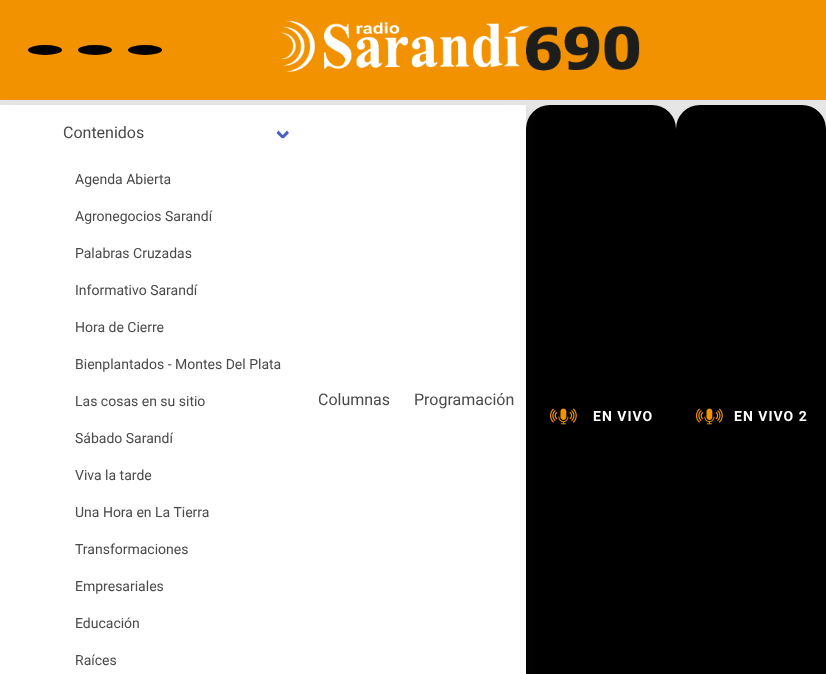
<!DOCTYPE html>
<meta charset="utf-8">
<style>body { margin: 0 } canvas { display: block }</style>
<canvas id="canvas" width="826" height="674"></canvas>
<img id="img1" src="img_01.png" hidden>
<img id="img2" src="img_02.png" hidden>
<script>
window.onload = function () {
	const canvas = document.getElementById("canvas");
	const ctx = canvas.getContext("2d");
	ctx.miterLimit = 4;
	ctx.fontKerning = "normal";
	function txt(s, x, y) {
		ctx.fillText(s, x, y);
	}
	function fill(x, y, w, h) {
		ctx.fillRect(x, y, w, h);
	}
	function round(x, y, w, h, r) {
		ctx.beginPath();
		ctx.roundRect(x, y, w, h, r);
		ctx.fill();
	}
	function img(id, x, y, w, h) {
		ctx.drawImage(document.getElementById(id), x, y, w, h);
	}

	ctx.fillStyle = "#F29200";
	fill(0, 0, 826, 674);
	ctx.fillStyle = "#000000";
	ctx.beginPath();
	ctx.ellipse(45, 50, 17, 5, 0, 0, Math.PI * 2);
	ctx.fill();
	ctx.beginPath();
	ctx.ellipse(95, 50, 17, 5, 0, 0, Math.PI * 2);
	ctx.fill();
	ctx.beginPath();
	ctx.ellipse(145, 50, 17, 5, 0, 0, Math.PI * 2);
	ctx.fill();
	img("img1", 281, 20, 359, 53);
	ctx.fillStyle = "#E6E6E6";
	fill(0, 100, 826, 29);
	ctx.fillStyle = "#000000";
	round(526, 105, 150, 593, 24);
	ctx.fillStyle = "rgba(54, 66, 63, 0.1)";
	ctx.filter = "blur(8px)";
	ctx.beginPath();
	ctx.rect(0, 113, 526, 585);
	ctx.fill();
	ctx.filter = "none";
	ctx.fillStyle = "#FFFFFF";
	fill(0, 105, 526, 569);
	ctx.fillStyle = "#485FC7";
	ctx.beginPath();
	ctx.moveTo(281.5, 136.5);
	ctx.lineTo(287, 130.5);
	ctx.lineTo(289, 133);
	ctx.lineTo(283.5, 138.5);
	ctx.closePath();
	ctx.fill();
	ctx.beginPath();
	ctx.moveTo(276.5, 133);
	ctx.lineTo(278.5, 130.5);
	ctx.lineTo(284, 136.5);
	ctx.lineTo(282, 138.5);
	ctx.closePath();
	ctx.fill();
	img("img2", 550, 408, 27, 17);
	ctx.fillStyle = "#000000";
	round(676, 105, 150, 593, 24);
	img("img2", 696, 408, 27, 17);
	ctx.font = "16px Roboto";
	ctx.fillStyle = "#4A4A4A";
	txt("Contenidos", 63, 138);
	ctx.font = "14px Roboto";
	txt("Agenda Abierta", 75, 184);
	txt("Agronegocios Sarandí", 75, 221);
	txt("Palabras Cruzadas", 75, 258);
	txt("Informativo Sarandí", 75, 295);
	txt("Hora de Cierre", 75, 332);
	txt("Bienplantados - Montes Del Plata", 75, 369);
	txt("Las cosas en su sitio", 75, 406);
	txt("Sábado Sarandí", 75, 443);
	txt("Viva la tarde", 75, 480);
	txt("Una Hora en La Tierra", 75, 517);
	txt("Transformaciones", 75, 554);
	txt("Empresariales", 75, 591);
	txt("Educación", 75, 628);
	txt("Raíces", 75, 665);
	ctx.font = "16px Roboto";
	txt("Columnas", 318, 405);
	txt("Programación", 414, 405);
	ctx.letterSpacing = "1px";
	ctx.font = "bold 14px Roboto";
	ctx.fillStyle = "#FFFFFF";
	txt("EN VIVO", 593, 421);
	txt("EN VIVO 2", 734, 421);
};
</script>
